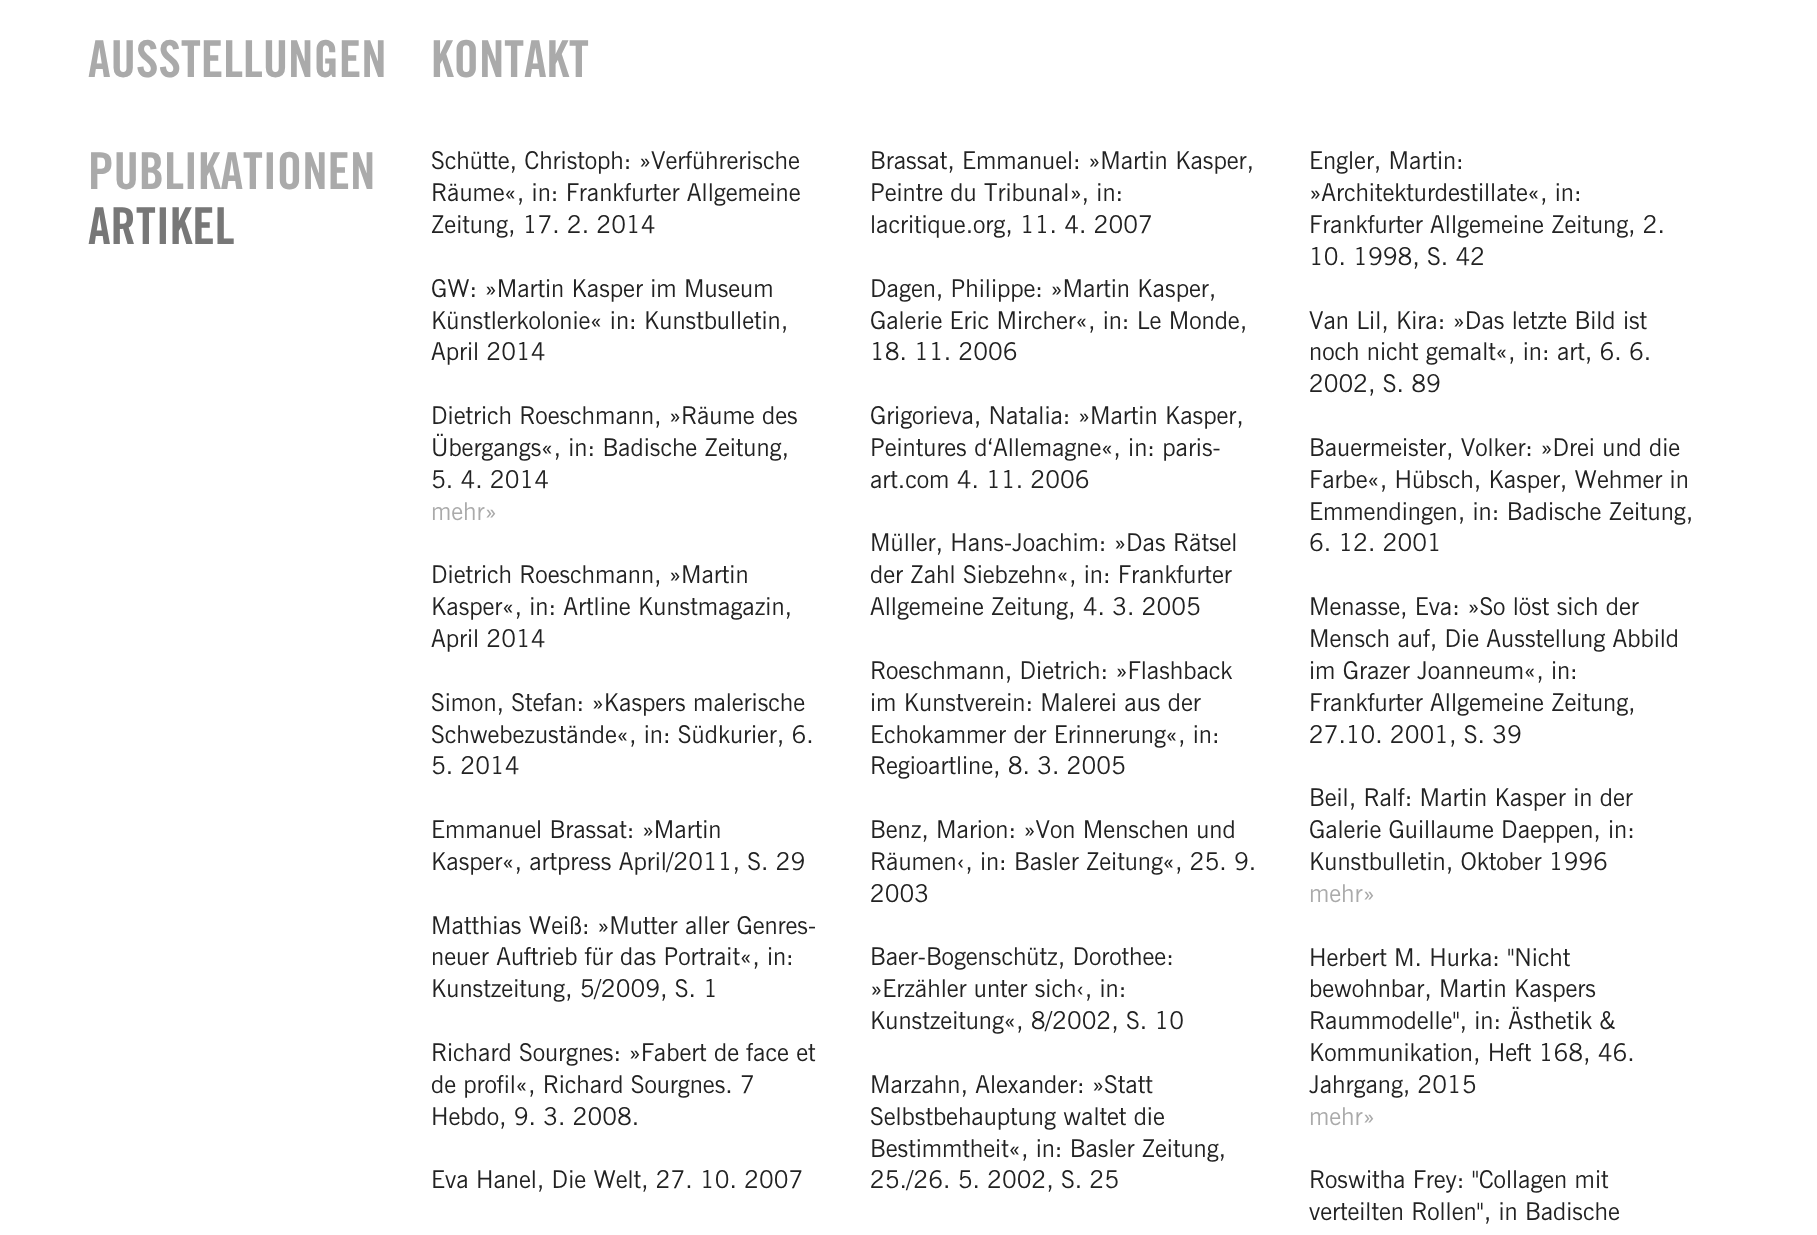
<!DOCTYPE html>
<meta charset="utf-8">
<style>body { margin: 0 } canvas { display: block }</style>
<canvas id="canvas" width="1817" height="1235"></canvas>
<script>
window.onload = function () {
	const canvas = document.getElementById("canvas");
	const ctx = canvas.getContext("2d");
	ctx.miterLimit = 4;
	ctx.fontKerning = "normal";
	function txt(s, x, y) {
		ctx.fillText(s, x, y);
	}
	function fill(x, y, w, h) {
		ctx.fillRect(x, y, w, h);
	}

	ctx.fillStyle = "#FFFFFF";
	fill(0, 0, 1817, 1235);
	ctx.font = "bold 50.75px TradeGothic";
	ctx.fillStyle = "#AAAAAA";
	txt("AUSSTELLUNGEN", 88, 77);
	txt("KONTAKT", 431, 77);
	txt("PUBLIKATIONEN", 88, 189);
	ctx.fillStyle = "#777777";
	txt("ARTIKEL", 88, 244);
	ctx.font = "24.5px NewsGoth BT";
	ctx.fillStyle = "#222222";
	txt("Schütte, Christoph: »Verführerische", 431, 169);
	txt("Räume«, in: Frankfurter Allgemeine", 431, 201);
	txt("Zeitung, 17. 2. 2014", 431, 233);
	txt("GW: »Martin Kasper im Museum", 431, 297);
	txt("Künstlerkolonie« in: Kunstbulletin,", 431, 329);
	txt("April 2014", 431, 360);
	txt("Dietrich Roeschmann, »Räume des", 431, 424);
	txt("Übergangs«, in: Badische Zeitung,", 431, 456);
	txt("5. 4. 2014", 431, 488);
	ctx.fillStyle = "#AAAAAA";
	txt("mehr»", 431, 520);
	ctx.fillStyle = "#222222";
	txt("Dietrich Roeschmann, »Martin", 431, 583);
	txt("Kasper«, in: Artline Kunstmagazin,", 431, 615);
	txt("April 2014", 431, 647);
	txt("Simon, Stefan: »Kaspers malerische", 431, 711);
	txt("Schwebezustände«, in: Südkurier, 6.", 431, 743);
	txt("5. 2014", 431, 774);
	txt("Emmanuel Brassat: »Martin", 431, 838);
	txt("Kasper«, artpress April/2011, S. 29", 431, 870);
	txt("Matthias Weiß: »Mutter aller Genres-", 431, 934);
	txt("neuer Auftrieb für das Portrait«, in:", 431, 965);
	txt("Kunstzeitung, 5/2009, S. 1", 431, 997);
	txt("Richard Sourgnes: »Fabert de face et", 431, 1061);
	txt("de profil«, Richard Sourgnes. 7", 431, 1093);
	txt("Hebdo, 9. 3. 2008.", 431, 1125);
	txt("Eva Hanel, Die Welt, 27. 10. 2007", 431, 1188);
	txt("Brassat, Emmanuel: »Martin Kasper,", 870, 169);
	txt("Peintre du Tribunal», in:", 870, 201);
	txt("lacritique.org, 11. 4. 2007", 870, 233);
	txt("Dagen, Philippe: »Martin Kasper,", 870, 297);
	txt("Galerie Eric Mircher«, in: Le Monde,", 870, 329);
	txt("18. 11. 2006", 870, 360);
	txt("Grigorieva, Natalia: »Martin Kasper,", 870, 424);
	txt("Peintures d‘Allemagne«, in: paris-", 870, 456);
	txt("art.com 4. 11. 2006", 870, 488);
	txt("Müller, Hans-Joachim: »Das Rätsel", 870, 551);
	txt("der Zahl Siebzehn«, in: Frankfurter", 870, 583);
	txt("Allgemeine Zeitung, 4. 3. 2005", 870, 615);
	txt("Roeschmann, Dietrich: »Flashback", 870, 679);
	txt("im Kunstverein: Malerei aus der", 870, 711);
	txt("Echokammer der Erinnerung«, in:", 870, 743);
	txt("Regioartline, 8. 3. 2005", 870, 774);
	txt("Benz, Marion: »Von Menschen und", 870, 838);
	txt("Räumen‹, in: Basler Zeitung«, 25. 9.", 870, 870);
	txt("2003", 870, 902);
	txt("Baer-Bogenschütz, Dorothee:", 870, 965);
	txt("»Erzähler unter sich‹, in:", 870, 997);
	txt("Kunstzeitung«, 8/2002, S. 10", 870, 1029);
	txt("Marzahn, Alexander: »Statt", 870, 1093);
	txt("Selbstbehauptung waltet die", 870, 1125);
	txt("Bestimmtheit«, in: Basler Zeitung,", 870, 1157);
	txt("25./26. 5. 2002, S. 25", 870, 1188);
	txt("Engler, Martin:", 1309, 169);
	txt("»Architekturdestillate«, in:", 1309, 201);
	txt("Frankfurter Allgemeine Zeitung, 2.", 1309, 233);
	txt("10. 1998, S. 42", 1309, 265);
	txt("Van Lil, Kira: »Das letzte Bild ist", 1309, 329);
	txt("noch nicht gemalt«, in: art, 6. 6.", 1309, 360);
	txt("2002, S. 89", 1309, 392);
	txt("Bauermeister, Volker: »Drei und die", 1309, 456);
	txt("Farbe«, Hübsch, Kasper, Wehmer in", 1309, 488);
	txt("Emmendingen, in: Badische Zeitung,", 1309, 520);
	txt("6. 12. 2001", 1309, 551);
	txt("Menasse, Eva: »So löst sich der", 1309, 615);
	txt("Mensch auf, Die Ausstellung Abbild", 1309, 647);
	txt("im Grazer Joanneum«, in:", 1309, 679);
	txt("Frankfurter Allgemeine Zeitung,", 1309, 711);
	txt("27.10. 2001, S. 39", 1309, 743);
	txt("Beil, Ralf: Martin Kasper in der", 1309, 806);
	txt("Galerie Guillaume Daeppen, in:", 1309, 838);
	txt("Kunstbulletin, Oktober 1996", 1309, 870);
	ctx.fillStyle = "#AAAAAA";
	txt("mehr»", 1309, 902);
	ctx.fillStyle = "#222222";
	txt("Herbert M. Hurka: \"Nicht", 1309, 966);
	txt("bewohnbar, Martin Kaspers", 1309, 997);
	txt("Raummodelle\", in: Ästhetik &", 1309, 1029);
	txt("Kommunikation, Heft 168, 46.", 1309, 1061);
	txt("Jahrgang, 2015", 1309, 1093);
	ctx.fillStyle = "#AAAAAA";
	txt("mehr»", 1309, 1125);
	ctx.fillStyle = "#222222";
	txt("Roswitha Frey: \"Collagen mit", 1309, 1188);
	txt("verteilten Rollen\", in Badische", 1309, 1220);
};
</script>
